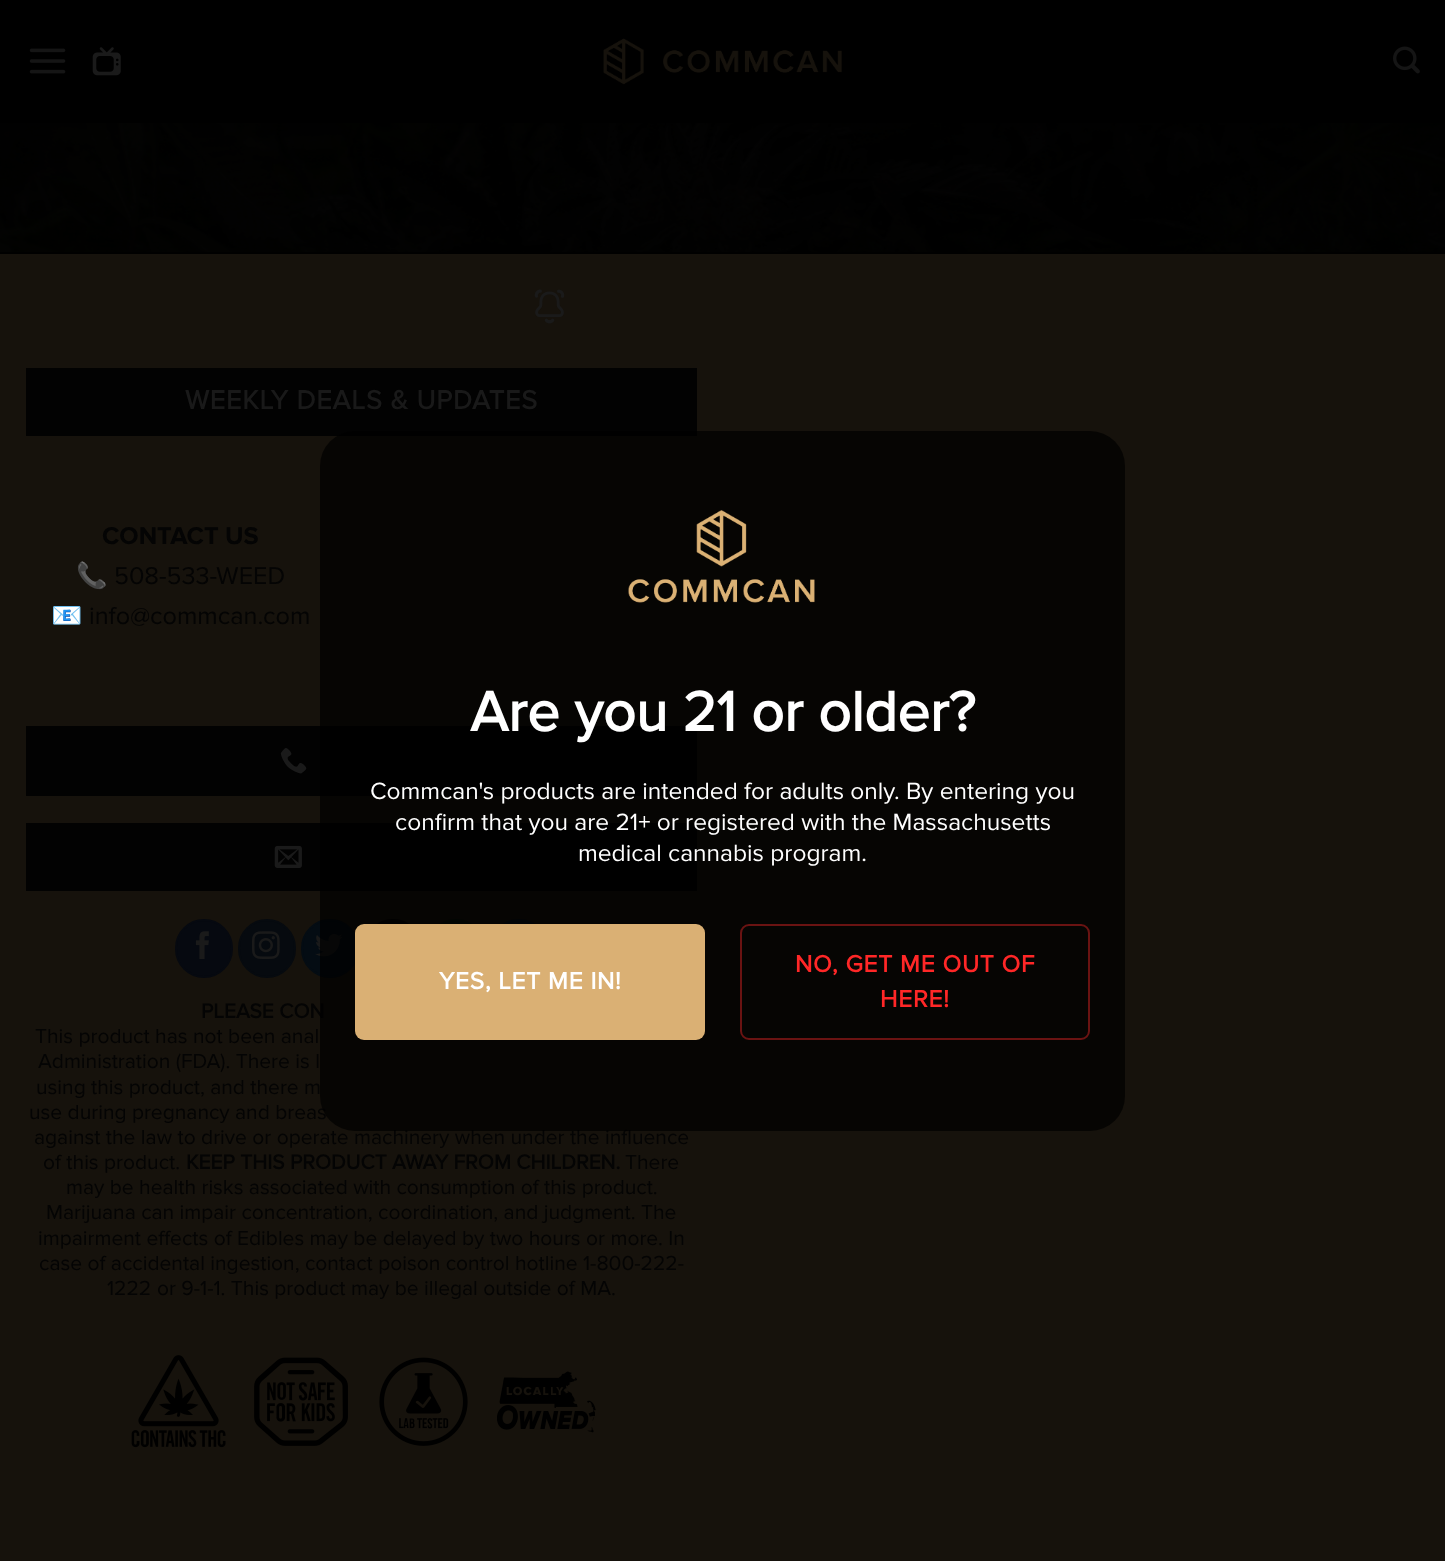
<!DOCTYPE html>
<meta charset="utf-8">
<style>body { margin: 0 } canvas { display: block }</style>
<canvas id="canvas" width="1445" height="1561"></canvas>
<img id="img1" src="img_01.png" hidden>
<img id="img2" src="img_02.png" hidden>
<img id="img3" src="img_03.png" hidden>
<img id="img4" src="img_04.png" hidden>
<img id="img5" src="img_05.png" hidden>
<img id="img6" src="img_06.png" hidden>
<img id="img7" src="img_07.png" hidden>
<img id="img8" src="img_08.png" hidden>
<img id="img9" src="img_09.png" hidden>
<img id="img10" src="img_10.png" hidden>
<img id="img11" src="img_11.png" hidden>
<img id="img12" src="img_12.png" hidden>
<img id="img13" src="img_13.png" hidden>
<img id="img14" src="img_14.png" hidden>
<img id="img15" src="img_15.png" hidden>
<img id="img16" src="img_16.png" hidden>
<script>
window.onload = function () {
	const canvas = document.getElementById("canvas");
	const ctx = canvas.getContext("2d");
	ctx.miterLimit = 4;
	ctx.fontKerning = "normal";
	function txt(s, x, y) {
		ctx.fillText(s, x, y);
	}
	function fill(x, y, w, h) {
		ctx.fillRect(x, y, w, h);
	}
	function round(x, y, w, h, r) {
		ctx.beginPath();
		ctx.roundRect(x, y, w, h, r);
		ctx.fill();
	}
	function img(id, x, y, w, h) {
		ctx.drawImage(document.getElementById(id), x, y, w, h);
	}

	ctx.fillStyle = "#000000";
	fill(0, 0, 1445, 1561);
	img("img1", 0, 0, 1445, 252);
	ctx.fillStyle = "rgba(0, 0, 0, 0.9)";
	fill(0, 0, 1445, 123);
	img("img2", 29, 48, 37, 26);
	img("img3", 92, 47, 29, 29);
	img("img4", 603, 38, 239, 47);
	img("img5", 1393, 46, 27, 28);
	ctx.fillStyle = "#16120C";
	fill(0, 254, 1445, 1307);
	img("img6", 534, 289, 31, 35);
	ctx.fillStyle = "#020202";
	fill(26, 368, 671, 68);
	fill(26, 726, 671, 70);
	img("img7", 280, 748, 27, 26);
	fill(26, 823, 671, 68);
	img("img8", 274, 845, 28, 23);
	ctx.fillStyle = "#060910";
	ctx.beginPath();
	ctx.roundRect(176, 920, 56, 57, 28);
	ctx.fill();
	ctx.strokeStyle = "#060910";
	ctx.lineWidth = 2;
	ctx.stroke();
	img("img9", 195, 931, 14, 28);
	ctx.fillStyle = "#060A0F";
	ctx.beginPath();
	ctx.roundRect(239, 920, 56, 57, 28);
	ctx.fill();
	ctx.strokeStyle = "#060A0F";
	ctx.stroke();
	img("img10", 252, 931, 28, 28);
	ctx.fillStyle = "#040C13";
	ctx.beginPath();
	ctx.roundRect(302, 920, 56, 57, 28);
	ctx.fill();
	ctx.strokeStyle = "#040C13";
	ctx.stroke();
	img("img11", 315, 933, 28, 24);
	ctx.fillStyle = "#020202";
	ctx.beginPath();
	ctx.roundRect(365, 920, 56, 57, 28);
	ctx.fill();
	ctx.strokeStyle = "#020202";
	ctx.stroke();
	ctx.fillStyle = "#081409";
	ctx.beginPath();
	ctx.roundRect(428, 920, 56, 57, 28);
	ctx.fill();
	ctx.strokeStyle = "#081409";
	ctx.stroke();
	ctx.fillStyle = "#081117";
	ctx.beginPath();
	ctx.roundRect(491, 920, 56, 57, 28);
	ctx.fill();
	ctx.strokeStyle = "#081117";
	ctx.stroke();
	img("img12", 131, 1355, 95, 93);
	img("img13", 254, 1357, 94, 89);
	img("img14", 379, 1357, 89, 89);
	img("img15", 497, 1371, 99, 62);
	ctx.letterSpacing = "0.8px";
	ctx.font = "bold 27.2px Proxima Nova";
	ctx.fillStyle = "#191919";
	txt("WEEKLY DEALS & UPDATES", 185, 409);
	ctx.letterSpacing = "0px";
	ctx.font = "bold 25.25px 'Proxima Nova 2'";
	ctx.fillStyle = "#040404";
	txt("CONTACT US", 102, 544);
	ctx.font = "25.25px Noto Color Emoji";
	txt("📞", 76, 584);
	ctx.font = "25.25px Proxima Nova";
	txt("508-533-WEED", 114, 584);
	ctx.font = "25.25px Noto Color Emoji";
	txt("📧", 51, 624);
	ctx.font = "25.25px Proxima Nova";
	txt("info@commcan.com", 89, 624);
	ctx.font = "bold 21px Proxima Nova";
	txt("PLEASE CON", 201, 1018);
	ctx.font = "21px Proxima Nova";
	txt("This product has not been anal", 35, 1043);
	txt("Administration (FDA). There is l", 38, 1068);
	txt("using this product, and there m", 36, 1094);
	txt("use during pregnancy and breas", 29, 1119);
	txt("against the law to drive or operate machinery when under the influence", 34, 1144);
	txt("of this product.", 43, 1169);
	ctx.font = "bold 21px Proxima Nova";
	txt("KEEP THIS PRODUCT AWAY FROM CHILDREN.", 186, 1169);
	ctx.font = "21px Proxima Nova";
	txt("There", 625, 1169);
	txt("may be health risks associated with consumption of this product.", 66, 1194);
	txt("Marijuana can impair concentration, coordination, and judgment. The", 46, 1219);
	txt("impairment effects of Edibles may be delayed by two hours or more. In", 38, 1245);
	txt("case of accidental ingestion, contact poison control hotline", 39, 1270);
	txt("1-800-222-", 583, 1270);
	txt("1222", 107, 1295);
	txt("or 9-1-1. This product may be illegal outside of MA.", 157, 1295);
	ctx.fillStyle = "rgba(0, 0, 0, 0.72)";
	round(320, 431, 805, 700, 35);
	img("img16", 628, 510, 187, 93);
	ctx.font = "bold 57.75px Proxima Nova";
	ctx.fillStyle = "#FFFFFF";
	txt("Are you 21 or older?", 470, 731);
	ctx.font = "24.5px Proxima Nova";
	txt("Commcan's products are intended for adults only. By entering you", 370, 799);
	txt("confirm that you are 21+ or registered with the Massachusetts", 395, 830);
	txt("medical cannabis program.", 578, 861);
	ctx.fillStyle = "#DAB074";
	round(355, 924, 350, 116, 9);
	ctx.letterSpacing = "0.75px";
	ctx.font = "bold 24.5px Proxima Nova";
	ctx.fillStyle = "#FFFFFF";
	txt("YES, LET ME IN!", 439, 989);
	ctx.beginPath();
	ctx.roundRect(741, 925, 348, 114, 8);
	ctx.strokeStyle = "#6A1312";
	ctx.stroke();
	ctx.fillStyle = "#FF2727";
	txt("NO, GET ME OUT OF", 795, 972);
	txt("HERE!", 880, 1007);
};
</script>
